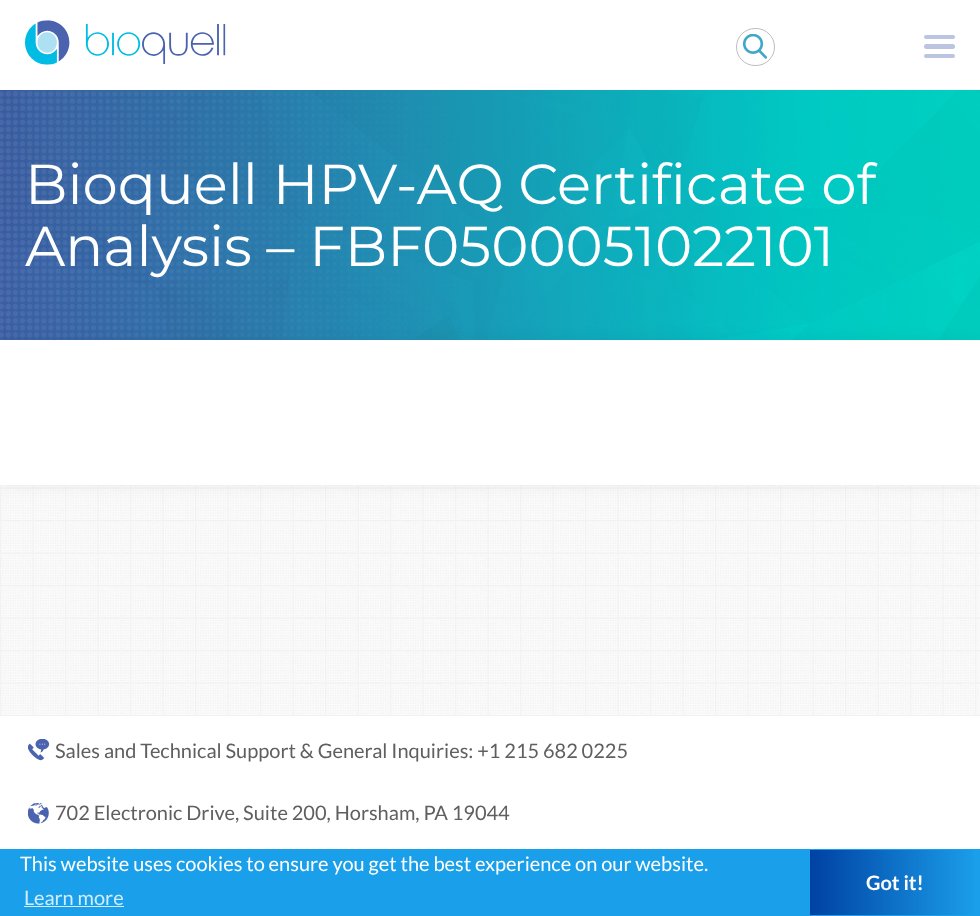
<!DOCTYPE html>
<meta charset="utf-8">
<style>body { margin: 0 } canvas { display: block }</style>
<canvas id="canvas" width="980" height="916"></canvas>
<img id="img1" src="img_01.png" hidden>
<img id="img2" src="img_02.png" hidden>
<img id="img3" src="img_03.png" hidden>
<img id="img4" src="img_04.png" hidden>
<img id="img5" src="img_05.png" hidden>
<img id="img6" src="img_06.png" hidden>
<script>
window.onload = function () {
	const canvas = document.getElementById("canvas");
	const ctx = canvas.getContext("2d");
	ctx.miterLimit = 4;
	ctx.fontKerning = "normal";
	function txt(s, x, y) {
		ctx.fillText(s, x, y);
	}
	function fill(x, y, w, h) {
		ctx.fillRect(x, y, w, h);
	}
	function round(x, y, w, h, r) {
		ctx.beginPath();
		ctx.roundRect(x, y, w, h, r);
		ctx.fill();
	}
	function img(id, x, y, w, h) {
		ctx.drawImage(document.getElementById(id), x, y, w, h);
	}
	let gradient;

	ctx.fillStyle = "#FFFFFF";
	fill(0, 0, 980, 916);
	img("img1", 0, 485, 980, 231);
	img("img2", 25, 20, 201, 45);
	ctx.beginPath();
	ctx.roundRect(736.5, 28.5, 38, 37, 18.5);
	ctx.strokeStyle = "#BEBEBE";
	ctx.stroke();
	img("img3", 743, 34, 25, 25);
	ctx.fillStyle = "#BBC4E0";
	round(924, 35, 31, 4, 2);
	round(924, 44, 31, 5, 2.5);
	round(924, 54, 31, 4, 2);
	img("img4", 0, 90, 980, 250);
	ctx.fillStyle = "rgba(0, 0, 0, 0.05)";
	ctx.filter = "blur(8px)";
	ctx.beginPath();
	ctx.rect(0, 340, 980, 145);
	ctx.fill();
	ctx.filter = "none";
	ctx.fillStyle = "#FFFFFF";
	fill(0, 340, 980, 145);
	img("img5", 28, 739, 22, 22);
	img("img6", 28, 803, 21, 21);
	ctx.fillStyle = "#1A9FEA";
	fill(0, 849, 980, 67);
	ctx.fillStyle = "#D1ECFB";
	fill(24, 906, 100, 1);
	gradient = ctx.createLinearGradient(980, 883, 810, 883);
	gradient.addColorStop(0, "#1BA0EB");
	gradient.addColorStop(1, "#0041A4");
	ctx.fillStyle = gradient;
	fill(810, 850, 164, 65);
	ctx.font = "56.25px Montserrat";
	ctx.fillStyle = "#FFFFFF";
	txt("Bioquell HPV-AQ Certificate of", 25, 204);
	txt("Analysis – FBF0500051022101", 25, 266);
	ctx.font = "20px Lato";
	ctx.fillStyle = "#5F5F5F";
	txt("Sales and Technical Support & General Inquiries: +1 215 682 0225", 55, 758);
	txt("702 Electronic Drive, Suite 200, Horsham, PA 19044", 55, 820);
	ctx.fillStyle = "#FFFFFF";
	txt("This website uses cookies to ensure you get the best experience on our website.", 20, 871);
	ctx.fillStyle = "#D1ECFB";
	txt("Learn more", 24, 905);
	ctx.font = "bold 20px Lato";
	ctx.fillStyle = "#FFFFFF";
	txt("Got it!", 866, 890);
};
</script>
